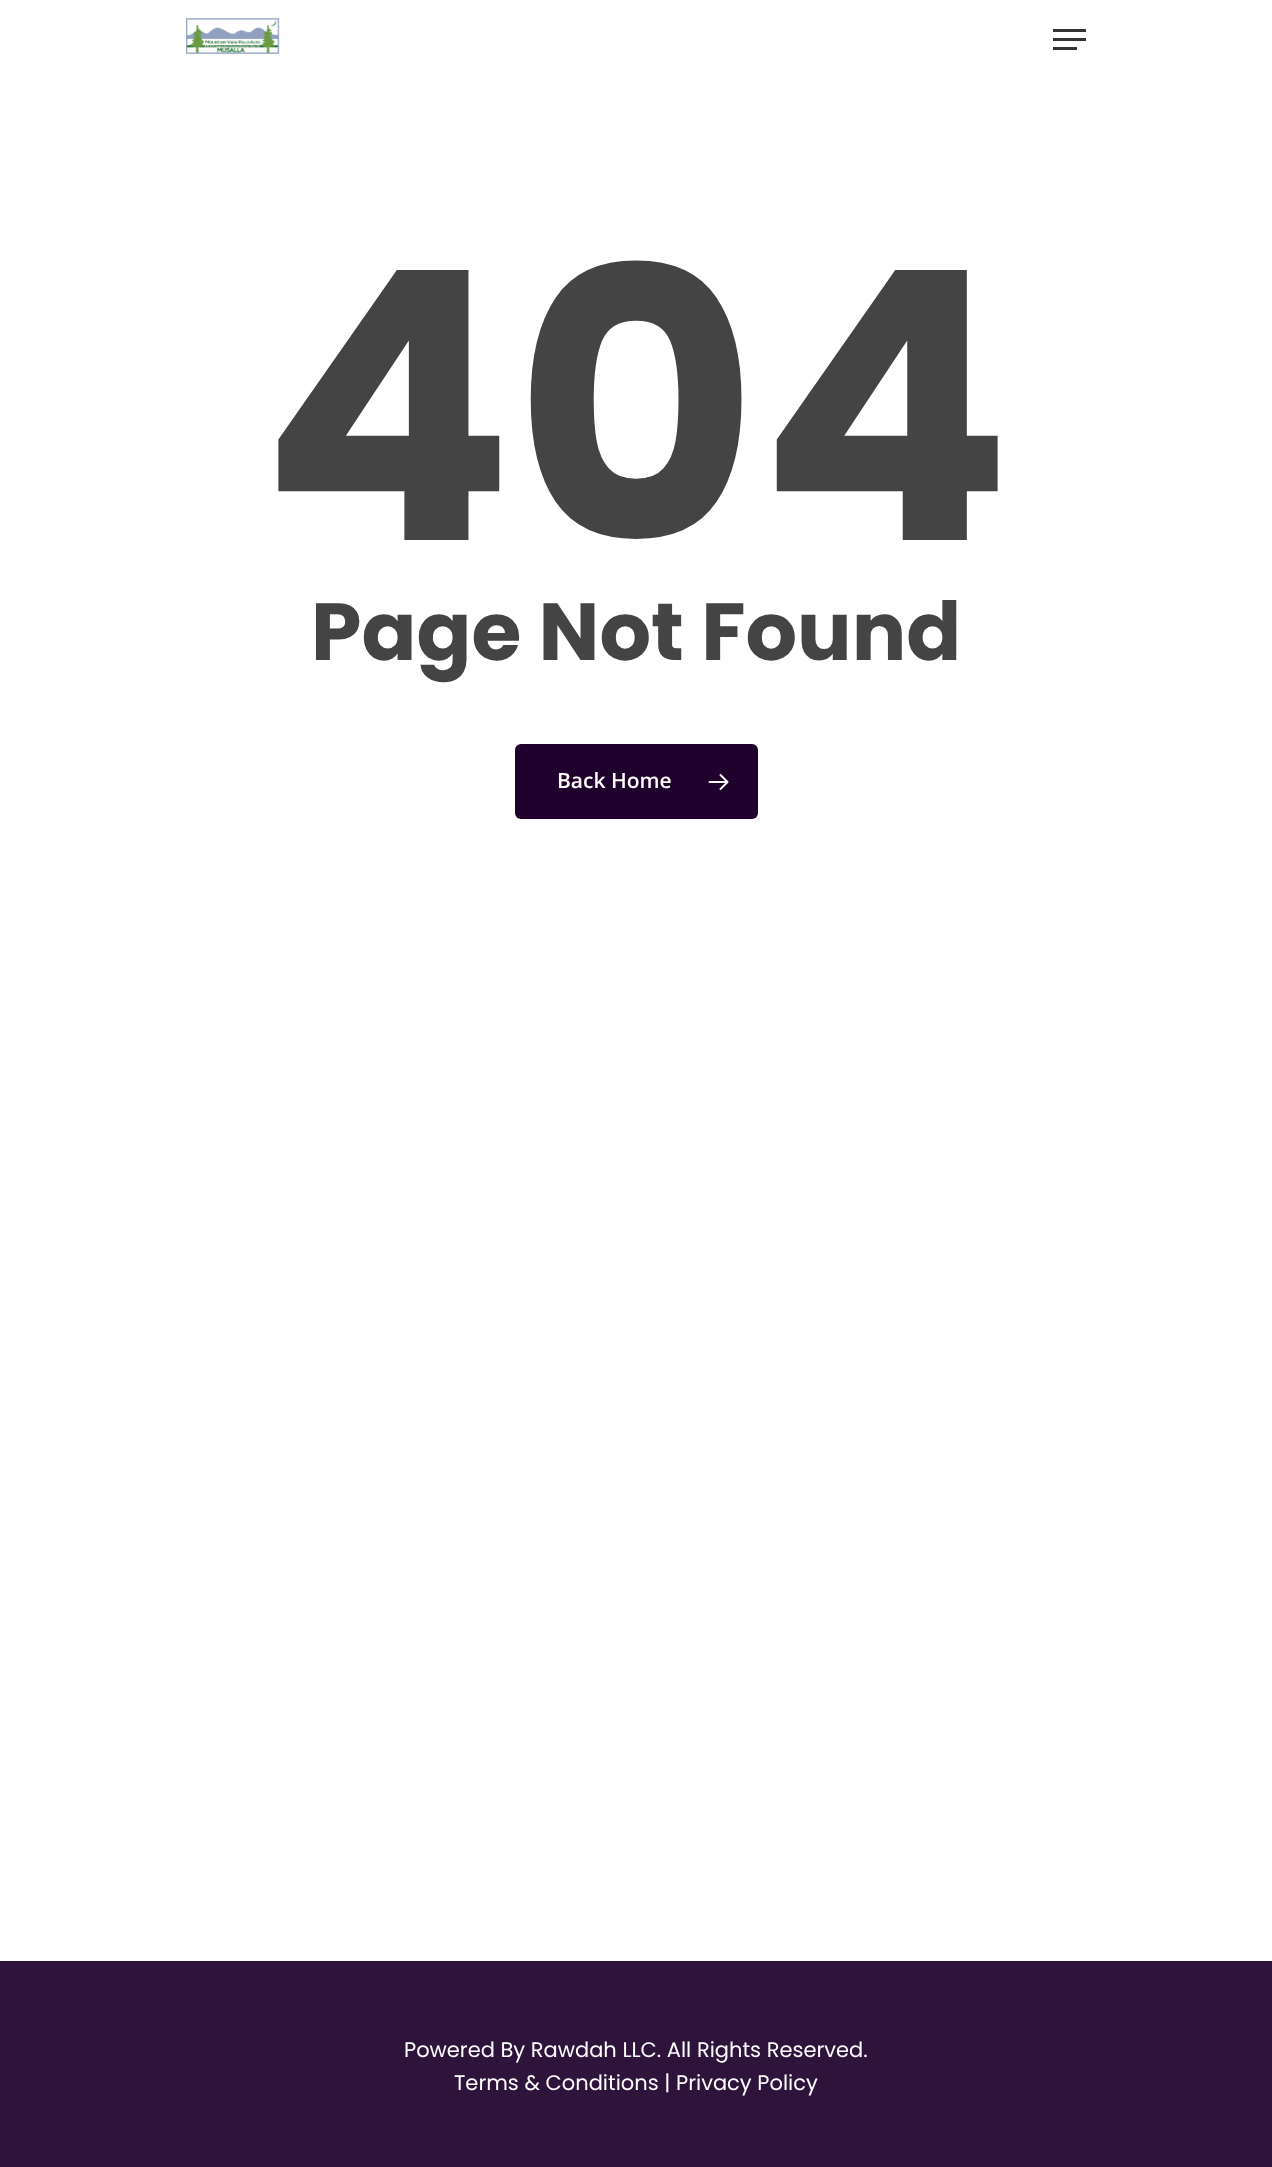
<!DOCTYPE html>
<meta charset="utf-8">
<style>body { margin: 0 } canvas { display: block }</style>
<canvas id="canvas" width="1272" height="2167"></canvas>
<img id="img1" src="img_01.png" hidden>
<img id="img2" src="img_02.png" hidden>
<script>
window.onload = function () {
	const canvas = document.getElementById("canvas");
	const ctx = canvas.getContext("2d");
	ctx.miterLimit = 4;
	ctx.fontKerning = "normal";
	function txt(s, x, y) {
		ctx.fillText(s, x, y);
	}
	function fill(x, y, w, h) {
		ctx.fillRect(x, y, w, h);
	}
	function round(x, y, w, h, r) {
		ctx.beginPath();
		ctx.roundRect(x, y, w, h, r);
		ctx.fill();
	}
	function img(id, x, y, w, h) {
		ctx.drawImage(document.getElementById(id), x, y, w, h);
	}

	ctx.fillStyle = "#FFFFFF";
	fill(0, 0, 1272, 2167);
	img("img1", 186, 18, 94, 36);
	ctx.fillStyle = "#333333";
	fill(1053, 29, 33, 3);
	fill(1053, 47, 24, 3);
	fill(1053, 38, 33, 3);
	ctx.fillStyle = "#20002C";
	round(515, 744, 243, 75, 6);
	img("img2", 708, 774, 21, 16);
	ctx.fillStyle = "#2E143B";
	fill(0, 1961, 1272, 206);
	ctx.font = "bold 375px Poppins";
	ctx.fillStyle = "#444444";
	txt("404", 260, 540);
	ctx.font = "bold 81px Poppins";
	txt("Page Not Found", 311, 660);
	ctx.font = "600 21px Open Sans";
	ctx.fillStyle = "#FFFFFF";
	txt("Back Home", 557, 788);
	ctx.font = "21px Poppins";
	txt("Powered By Rawdah LLC. All Rights Reserved.", 404, 2057);
	txt("Terms & Conditions | Privacy Policy", 454, 2090);
};
</script>
